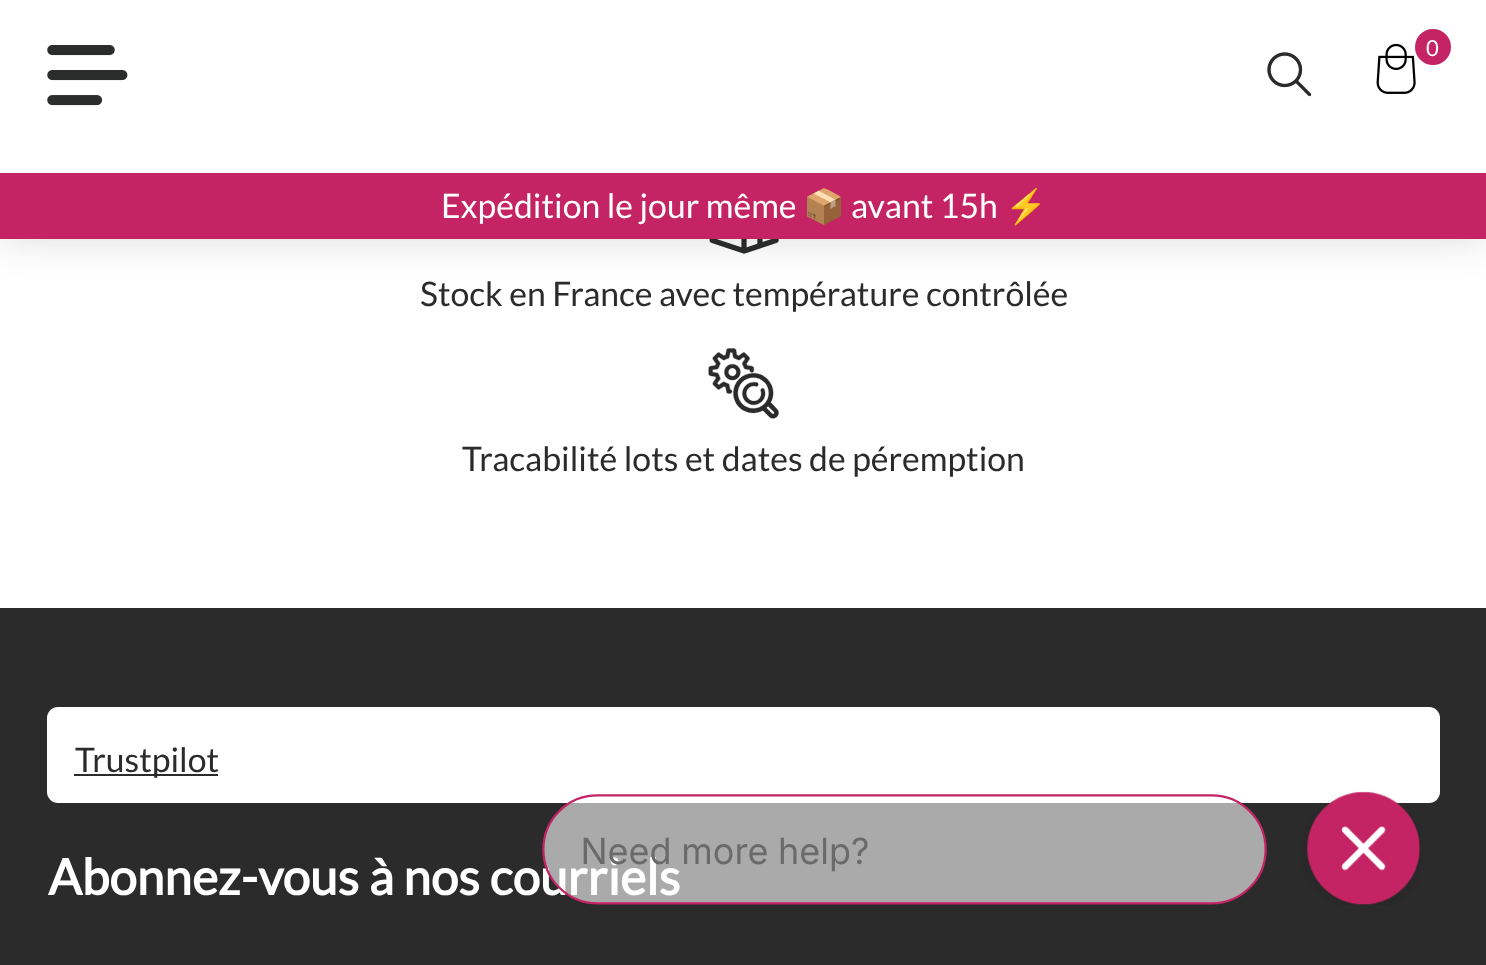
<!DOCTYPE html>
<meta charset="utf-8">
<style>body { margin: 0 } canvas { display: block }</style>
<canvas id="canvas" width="1486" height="965"></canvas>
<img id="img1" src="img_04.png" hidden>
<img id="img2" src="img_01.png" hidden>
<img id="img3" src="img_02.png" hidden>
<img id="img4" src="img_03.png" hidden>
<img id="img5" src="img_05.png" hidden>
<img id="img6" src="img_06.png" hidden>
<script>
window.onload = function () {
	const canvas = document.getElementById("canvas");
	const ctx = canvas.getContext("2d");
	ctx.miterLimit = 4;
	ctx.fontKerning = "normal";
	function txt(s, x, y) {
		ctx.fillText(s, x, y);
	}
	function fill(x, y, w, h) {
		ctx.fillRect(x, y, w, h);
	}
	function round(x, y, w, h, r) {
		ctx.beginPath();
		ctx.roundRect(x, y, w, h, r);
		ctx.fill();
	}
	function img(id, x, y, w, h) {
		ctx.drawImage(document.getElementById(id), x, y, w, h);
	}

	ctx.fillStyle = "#FFFFFF";
	fill(0, 0, 1486, 965);
	img("img1", 709, 239, 70, 15);
	ctx.fillStyle = "rgba(0, 0, 0, 0.2)";
	ctx.filter = "blur(22.5px)";
	ctx.beginPath();
	ctx.rect(0, -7, 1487, 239);
	ctx.fill();
	ctx.filter = "none";
	ctx.fillStyle = "#FFFFFF";
	fill(0, 0, 1486, 173);
	img("img2", 47, 45, 81, 61);
	img("img3", 1376, 43, 40, 51);
	ctx.fillStyle = "#C42463";
	ctx.beginPath();
	ctx.arc(1433, 47, 18, 0, Math.PI * 2);
	ctx.fill();
	img("img4", 1266, 51, 46, 46);
	fill(0, 173, 1486, 66);
	img("img5", 708, 348, 71, 71);
	ctx.fillStyle = "#2B2B2B";
	fill(0, 608, 1486, 357);
	ctx.fillStyle = "#FFFFFF";
	round(47, 707, 1393, 96, 11);
	ctx.fillStyle = "#2B2B2B";
	fill(74, 774, 144, 2);
	ctx.font = "22px Lato";
	ctx.fillStyle = "#FFFFFF";
	txt("0", 1426, 56);
	ctx.font = "33.75px Lato";
	txt("Expédition le jour même", 441, 218);
	ctx.font = "33.75px Noto Color Emoji";
	txt("📦", 803, 218);
	ctx.font = "33.75px Lato";
	txt("avant 15h", 851, 218);
	ctx.font = "33.75px Noto Color Emoji";
	txt("⚡", 1005, 218);
	ctx.font = "33.75px Lato";
	ctx.fillStyle = "#2B2B2B";
	txt("Stock en France avec température contrôlée", 420, 306);
	txt("Tracabilité lots et dates de péremption", 462, 471);
	txt("Trustpilot", 75, 772);
	ctx.font = "bold 49.5px Lato";
	ctx.fillStyle = "#FFFFFF";
	txt("Abonnez-vous à nos courriels", 48, 895);
	img("img6", 542, 791, 879, 114);
};
</script>
